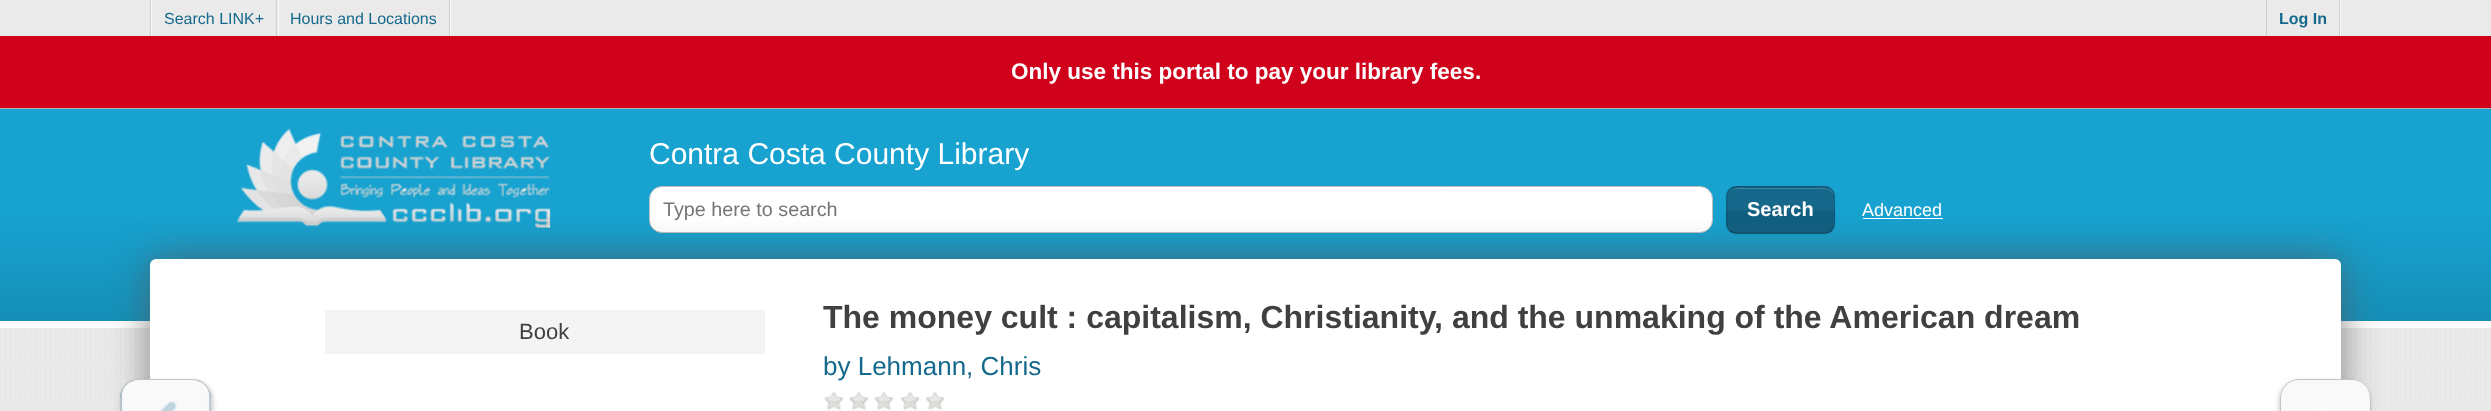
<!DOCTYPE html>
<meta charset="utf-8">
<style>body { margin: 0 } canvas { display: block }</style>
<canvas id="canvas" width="2491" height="411"></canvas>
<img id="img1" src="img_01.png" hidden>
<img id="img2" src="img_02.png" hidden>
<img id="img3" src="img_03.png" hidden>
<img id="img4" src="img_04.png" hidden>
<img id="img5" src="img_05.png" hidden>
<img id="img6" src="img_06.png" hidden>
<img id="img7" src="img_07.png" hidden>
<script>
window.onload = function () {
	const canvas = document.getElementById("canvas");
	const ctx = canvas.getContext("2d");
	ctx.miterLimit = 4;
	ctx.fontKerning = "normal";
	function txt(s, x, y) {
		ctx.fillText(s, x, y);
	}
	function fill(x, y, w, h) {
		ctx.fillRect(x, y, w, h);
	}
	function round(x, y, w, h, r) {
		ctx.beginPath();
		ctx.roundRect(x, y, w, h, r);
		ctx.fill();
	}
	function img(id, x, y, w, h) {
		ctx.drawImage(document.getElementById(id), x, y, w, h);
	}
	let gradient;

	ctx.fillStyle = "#EAEAEA";
	fill(0, 0, 2491, 411);
	ctx.fillStyle = "#CECECE";
	fill(150, 0, 1, 36);
	ctx.fillStyle = "#F8F8F8";
	fill(278, 0, 1, 36);
	fill(151, 0, 1, 36);
	ctx.fillStyle = "#CECECE";
	fill(276, 0, 1, 36);
	ctx.fillStyle = "#F8F8F8";
	fill(450, 0, 1, 36);
	ctx.fillStyle = "#CECECE";
	fill(449, 0, 1, 36);
	fill(2266, 0, 1, 36);
	ctx.fillStyle = "#F8F8F8";
	fill(2340, 0, 1, 36);
	ctx.fillStyle = "#CECECE";
	fill(2339, 0, 1, 36);
	ctx.fillStyle = "#D0021B";
	fill(0, 36, 2491, 72);
	gradient = ctx.createLinearGradient(1246, 109, 1246, 321);
	gradient.addColorStop(0.5, "#17A2D0");
	gradient.addColorStop(1, "#158FB8");
	ctx.fillStyle = gradient;
	fill(0, 109, 2491, 212);
	ctx.fillStyle = "#B4B4B4";
	fill(0, 108, 2491, 1);
	ctx.fillStyle = "#FFFFFF";
	fill(0, 321, 2491, 7);
	img("img1", 237, 128, 314, 100);
	ctx.beginPath();
	ctx.roundRect(649.5, 186.5, 1063, 46, 12.5);
	ctx.fill();
	ctx.strokeStyle = "#BFBFBF";
	ctx.stroke();
	ctx.fillStyle = "rgba(0, 0, 0, 0.05)";
	ctx.filter = "blur(1px)";
	ctx.beginPath();
	ctx.roundRect(1726, 188, 109, 47, 10);
	ctx.fill();
	ctx.filter = "none";
	ctx.save();
	ctx.beginPath();
	ctx.roundRect(1726, 186, 109, 48, 10);
	ctx.clip();
	gradient = ctx.createLinearGradient(1781, 143, 1781, 188);
	gradient.addColorStop(0.48, "#15688A");
	gradient.addColorStop(0.52, "#105F80");
	ctx.fillStyle = gradient;
	fill(1726, 186, 109, 2);
	gradient = ctx.createLinearGradient(1781, 188, 1781, 233);
	gradient.addColorStop(0.48, "#15688A");
	gradient.addColorStop(0.52, "#105F80");
	ctx.fillStyle = gradient;
	fill(1726, 188, 109, 45);
	gradient = ctx.createLinearGradient(1781, 233, 1781, 278);
	gradient.addColorStop(0.48, "#15688A");
	gradient.addColorStop(0.52, "#105F80");
	ctx.fillStyle = gradient;
	fill(1726, 233, 109, 1);
	ctx.restore();
	ctx.fillStyle = "#4486A1";
	ctx.beginPath();
	ctx.moveTo(1736, 189);
	ctx.lineTo(1825, 189);
	ctx.bezierCurveTo(1830, 189, 1834, 193, 1834, 198);
	ctx.bezierCurveTo(1834, 185, 1819, 188, 1810, 188);
	ctx.lineTo(1752, 188);
	ctx.bezierCurveTo(1743, 188, 1728, 185, 1728, 198);
	ctx.bezierCurveTo(1728, 193, 1731, 189, 1736, 189);
	ctx.closePath();
	ctx.fill();
	ctx.beginPath();
	ctx.moveTo(1831.5, 230.5);
	ctx.bezierCurveTo(1830, 232, 1827.5, 233, 1825, 233);
	ctx.lineTo(1736, 233);
	ctx.bezierCurveTo(1734, 233, 1731.5, 232, 1729.5, 230.5);
	ctx.strokeStyle = "rgba(0, 0, 0, 0.25)";
	ctx.lineWidth = 1.2;
	ctx.stroke();
	ctx.beginPath();
	ctx.moveTo(1729.5, 230.5);
	ctx.bezierCurveTo(1726.5, 227, 1727, 223.5, 1727, 219);
	ctx.lineTo(1727, 194.5);
	ctx.bezierCurveTo(1729, 184, 1744, 187, 1751, 187);
	ctx.lineTo(1810, 187);
	ctx.bezierCurveTo(1835, 187, 1834.5, 186, 1834.5, 210);
	ctx.bezierCurveTo(1834.5, 215.5, 1836, 226, 1831.5, 230.5);
	ctx.strokeStyle = "rgba(0, 0, 0, 0.1)";
	ctx.stroke();
	ctx.fillStyle = "#FFFFFF";
	fill(1863, 218, 80, 1);
	img("img2", 0, 328, 2491, 82);
	ctx.fillStyle = "rgba(85, 85, 85, 0.7)";
	ctx.filter = "blur(19px)";
	ctx.beginPath();
	ctx.roundRect(150, 259, 2191, 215, 6);
	ctx.fill();
	ctx.filter = "none";
	ctx.fillStyle = "#FFFFFF";
	round(150, 259, 2191, 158, 6);
	ctx.fillStyle = "#F4F4F4";
	fill(325, 310, 440, 44);
	img("img3", 824, 391, 20, 20);
	img("img3", 849, 391, 20, 20);
	img("img3", 874, 391, 20, 20);
	img("img4", 900, 391, 20, 20);
	img("img5", 925, 391, 20, 20);
	ctx.fillStyle = "rgba(0, 0, 0, 0.2)";
	ctx.filter = "blur(2px)";
	ctx.beginPath();
	ctx.roundRect(121, 381, 92, 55, 19);
	ctx.fill();
	ctx.filter = "none";
	ctx.fillStyle = "#15698C";
	round(120, 379, 91, 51, 19);
	img("img6", 120, 379, 91, 32);
	ctx.beginPath();
	ctx.roundRect(120.5, 379.5, 90, 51, 18.5);
	ctx.strokeStyle = "#C4C4C4";
	ctx.lineWidth = 1;
	ctx.stroke();
	ctx.save();
	ctx.beginPath();
	ctx.moveTo(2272, 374);
	ctx.lineTo(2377, 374);
	ctx.lineTo(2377, 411);
	ctx.lineTo(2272, 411);
	ctx.closePath();
	ctx.moveTo(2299, 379);
	ctx.lineTo(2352, 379);
	ctx.bezierCurveTo(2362.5, 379, 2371, 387.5, 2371, 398);
	ctx.lineTo(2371, 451);
	ctx.bezierCurveTo(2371, 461.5, 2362.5, 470, 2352, 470);
	ctx.lineTo(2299, 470);
	ctx.bezierCurveTo(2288.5, 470, 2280, 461.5, 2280, 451);
	ctx.lineTo(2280, 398);
	ctx.bezierCurveTo(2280, 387.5, 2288.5, 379, 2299, 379);
	ctx.closePath();
	ctx.clip("evenodd");
	ctx.fillStyle = "rgba(0, 0, 0, 0.2)";
	ctx.filter = "blur(2px)";
	ctx.beginPath();
	ctx.roundRect(2279, 381, 91, 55, 19);
	ctx.fill();
	ctx.filter = "none";
	ctx.restore();
	img("img7", 2281, 379, 90, 32);
	ctx.beginPath();
	ctx.roundRect(2280.5, 379.5, 90, 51, 18.5);
	ctx.stroke();
	ctx.font = "16px Liberation Sans";
	txt("Search LINK+", 164, 24);
	txt("Hours and Locations", 290, 24);
	ctx.font = "bold 16px Liberation Sans";
	txt("Log In", 2279, 24);
	ctx.font = "bold 22.5px Liberation Sans";
	ctx.fillStyle = "#FFFFFF";
	txt("Only use this portal to pay your library fees.", 1011, 79);
	ctx.font = "30px Liberation Sans";
	txt("Contra Costa County Library", 649, 164);
	ctx.font = "19.75px Liberation Sans";
	ctx.fillStyle = "#757575";
	txt("Type here to search", 663, 216);
	ctx.font = "bold 20px Liberation Sans";
	ctx.fillStyle = "#FFFFFF";
	txt("Search", 1747, 216);
	ctx.font = "18px Liberation Sans";
	txt("Advanced", 1862, 216);
	ctx.font = "22px Liberation Sans";
	ctx.fillStyle = "#404040";
	txt("Book", 519, 339);
	ctx.font = "bold 32px Liberation Sans";
	txt("The money cult : capitalism, Christianity, and the unmaking of the American dream", 823, 328);
	ctx.font = "26px Liberation Sans";
	ctx.fillStyle = "#15698C";
	txt("by Lehmann, Chris", 823, 375);
};
</script>
